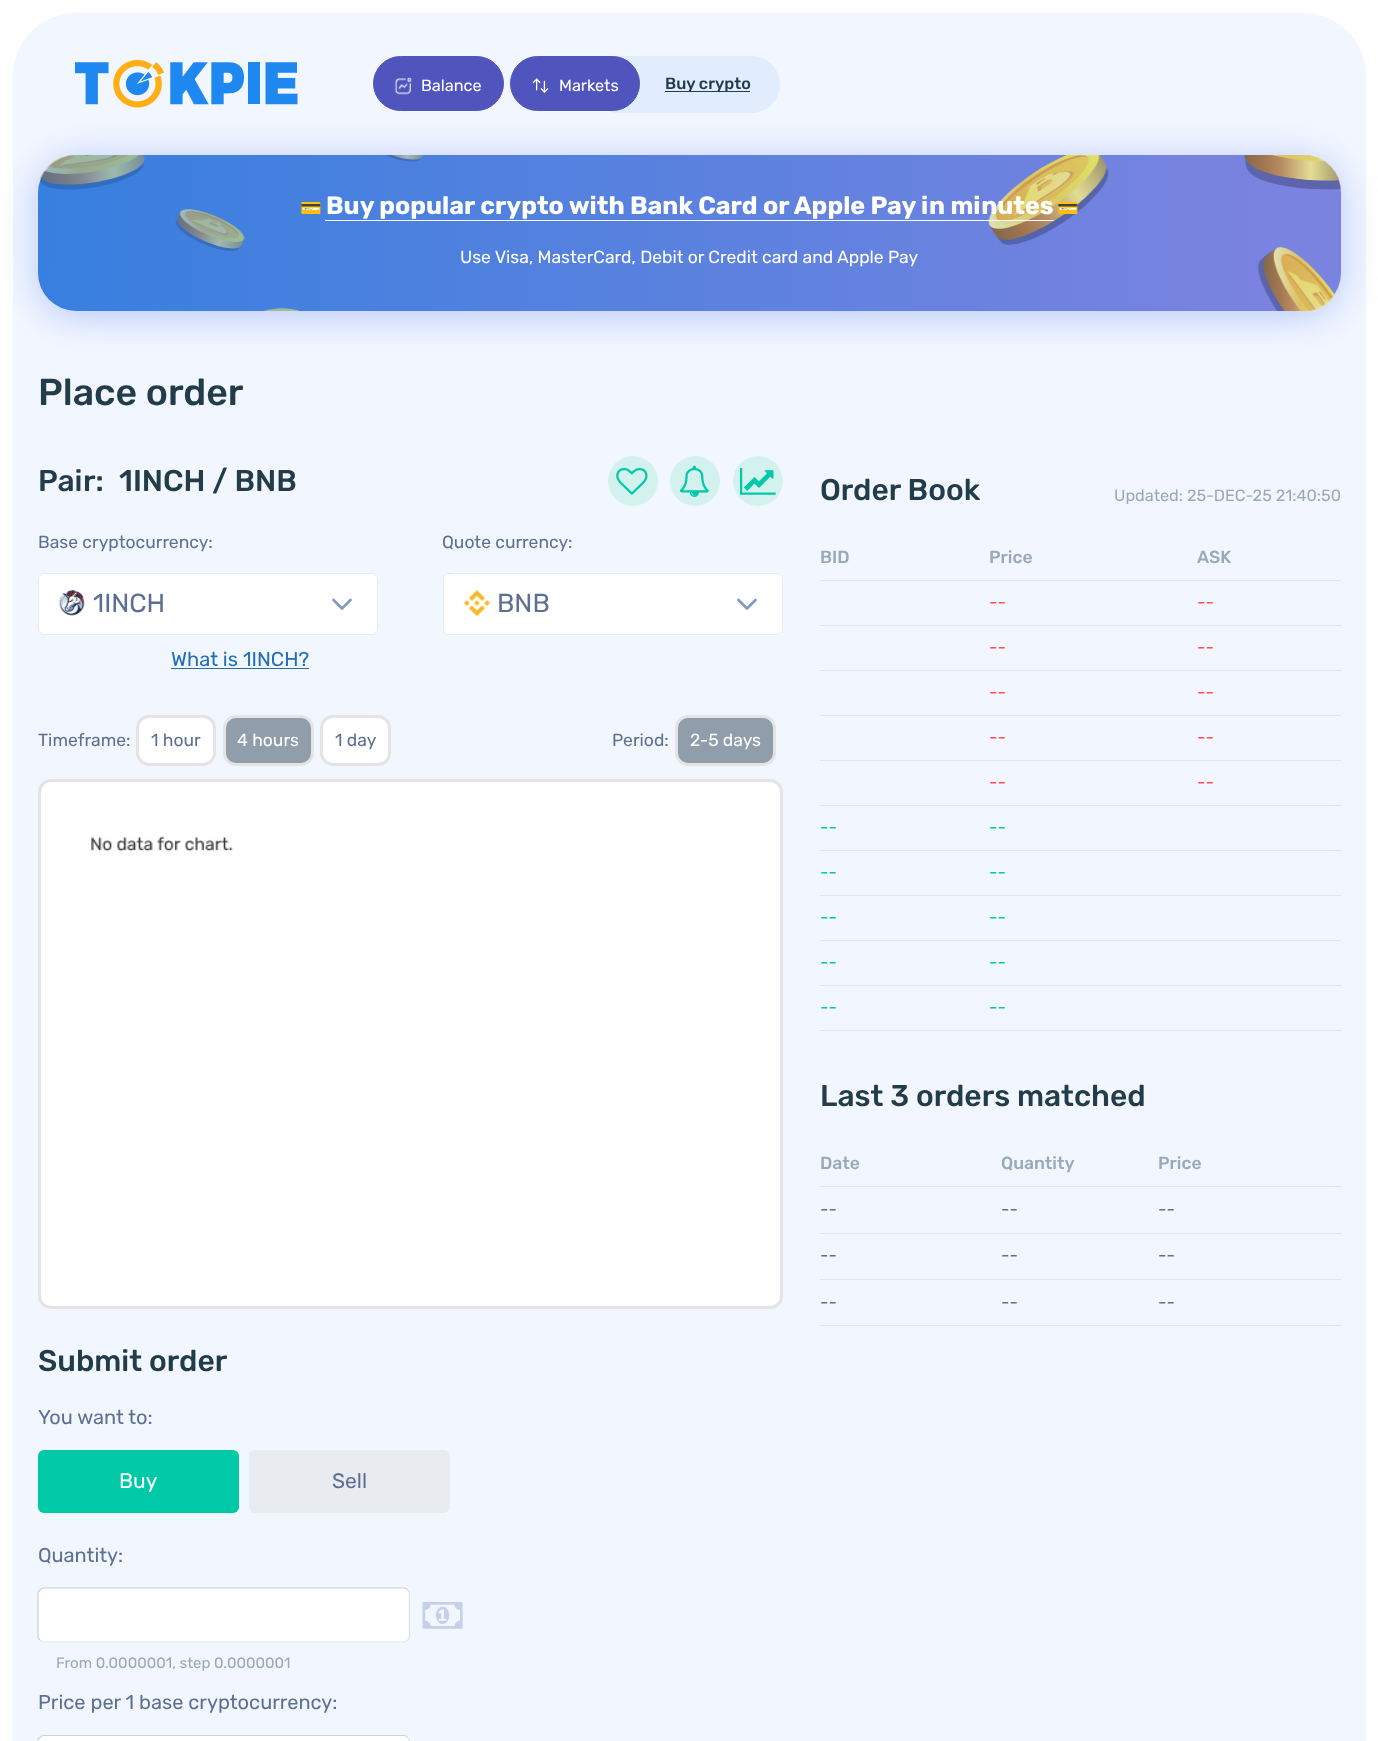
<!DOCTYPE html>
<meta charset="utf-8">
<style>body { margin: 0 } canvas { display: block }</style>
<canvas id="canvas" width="1378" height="1741"></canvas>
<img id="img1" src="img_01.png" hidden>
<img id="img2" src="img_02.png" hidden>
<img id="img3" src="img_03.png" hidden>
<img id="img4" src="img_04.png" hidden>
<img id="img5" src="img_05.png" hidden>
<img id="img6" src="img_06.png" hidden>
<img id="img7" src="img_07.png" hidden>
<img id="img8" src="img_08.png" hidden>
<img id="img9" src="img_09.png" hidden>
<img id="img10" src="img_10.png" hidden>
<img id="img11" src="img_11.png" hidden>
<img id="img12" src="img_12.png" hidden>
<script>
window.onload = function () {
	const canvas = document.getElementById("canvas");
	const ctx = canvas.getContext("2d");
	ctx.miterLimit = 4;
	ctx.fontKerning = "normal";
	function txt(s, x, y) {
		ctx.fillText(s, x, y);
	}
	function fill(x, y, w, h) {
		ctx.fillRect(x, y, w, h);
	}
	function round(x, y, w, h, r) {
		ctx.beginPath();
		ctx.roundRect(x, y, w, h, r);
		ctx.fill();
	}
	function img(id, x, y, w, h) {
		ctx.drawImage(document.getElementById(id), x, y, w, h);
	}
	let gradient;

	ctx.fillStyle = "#FFFFFF";
	fill(0, 0, 1378, 1741);
	ctx.fillStyle = "#F2F7FF";
	ctx.beginPath();
	ctx.moveTo(76, 13);
	ctx.lineTo(1303, 13);
	ctx.bezierCurveTo(1338, 13, 1366, 41, 1366, 76);
	ctx.lineTo(1366, 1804);
	ctx.lineTo(13, 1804);
	ctx.lineTo(13, 76);
	ctx.bezierCurveTo(13, 41, 41, 13, 76, 13);
	ctx.closePath();
	ctx.fill();
	img("img1", 75, 60, 223, 48);
	ctx.fillStyle = "#E1ECFC";
	round(590, 56, 190, 57, 28.5);
	ctx.fillStyle = "rgba(165, 185, 247, 0.78)";
	ctx.filter = "blur(19px)";
	ctx.beginPath();
	ctx.roundRect(38, 160, 1303, 156, 38);
	ctx.fill();
	ctx.filter = "none";
	ctx.fillStyle = "#5055BE";
	ctx.beginPath();
	ctx.roundRect(373.5, 56.5, 130, 54, 27);
	ctx.fill();
	ctx.strokeStyle = "#5055BE";
	ctx.stroke();
	img("img2", 394, 77, 18, 18);
	ctx.beginPath();
	ctx.roundRect(510.5, 56.5, 129, 54, 27);
	ctx.fill();
	ctx.stroke();
	img("img3", 532, 78, 17, 15);
	ctx.fillStyle = "#233C4A";
	fill(665, 91, 85, 1);
	gradient = ctx.createLinearGradient(1342, 240, -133, 224);
	gradient.addColorStop(0.05, "#7A83DF");
	gradient.addColorStop(1, "#2E7FDF");
	ctx.fillStyle = gradient;
	round(38, 155, 1303, 156, 38);
	img("img4", 40, 155, 383, 156);
	img("img5", 988, 155, 353, 156);
	ctx.fillStyle = "#FFFFFF";
	fill(325, 220, 729, 1);
	ctx.fillStyle = "#D3F2EE";
	ctx.beginPath();
	ctx.arc(633, 481, 25, 0, Math.PI * 2);
	ctx.fill();
	img("img6", 616, 467, 32, 28);
	ctx.beginPath();
	ctx.arc(695, 481, 25, 0, Math.PI * 2);
	ctx.fill();
	img("img7", 679, 465, 30, 32);
	ctx.beginPath();
	ctx.arc(758, 481, 25, 0, Math.PI * 2);
	ctx.fill();
	img("img8", 740, 467, 36, 28);
	ctx.fillStyle = "#FFFFFF";
	round(38, 573, 340, 62, 6);
	ctx.beginPath();
	ctx.roundRect(38.5, 573.5, 339, 61, 5.5);
	ctx.strokeStyle = "rgba(133, 154, 192, 0.2)";
	ctx.stroke();
	img("img9", 59, 590, 26, 26);
	ctx.beginPath();
	ctx.moveTo(350.5, 600);
	ctx.lineTo(342, 608.5);
	ctx.lineTo(333.5, 600);
	ctx.strokeStyle = "#859AC0";
	ctx.lineWidth = 2.7;
	ctx.lineCap = "round";
	ctx.lineJoin = "round";
	ctx.stroke();
	ctx.fillStyle = "#236EB9";
	fill(171, 668, 138, 1);
	ctx.fillStyle = "#FFFFFF";
	round(443, 573, 340, 62, 6);
	ctx.beginPath();
	ctx.roundRect(443.5, 573.5, 339, 61, 5.5);
	ctx.strokeStyle = "rgba(133, 154, 192, 0.2)";
	ctx.lineWidth = 1;
	ctx.lineJoin = "miter";
	ctx.stroke();
	img("img10", 463, 590, 28, 27);
	ctx.beginPath();
	ctx.moveTo(755.5, 600);
	ctx.lineTo(747, 608.5);
	ctx.lineTo(738.5, 600);
	ctx.strokeStyle = "#859AC0";
	ctx.lineWidth = 2.7;
	ctx.lineJoin = "round";
	ctx.stroke();
	ctx.beginPath();
	ctx.roundRect(137.5, 716.5, 77, 48, 11.5);
	ctx.fill();
	ctx.strokeStyle = "#E4E4E4";
	ctx.lineWidth = 3;
	ctx.lineJoin = "miter";
	ctx.stroke();
	ctx.fillStyle = "#8F9EAA";
	ctx.beginPath();
	ctx.roundRect(224.5, 716.5, 88, 48, 11.5);
	ctx.fill();
	ctx.stroke();
	ctx.fillStyle = "#FFFFFF";
	ctx.beginPath();
	ctx.roundRect(321.5, 716.5, 68, 48, 11.5);
	ctx.fill();
	ctx.stroke();
	ctx.fillStyle = "#8F9EAA";
	ctx.beginPath();
	ctx.roundRect(676.5, 716.5, 98, 48, 11.5);
	ctx.fill();
	ctx.stroke();
	ctx.fillStyle = "#FFFFFF";
	ctx.beginPath();
	ctx.roundRect(39.5, 780.5, 742, 527, 11.5);
	ctx.fill();
	ctx.stroke();
	img("img11", 91, 836, 142, 16);
	ctx.fillStyle = "#00C9A7";
	round(38, 1450, 201, 63, 6);
	ctx.fillStyle = "#E8EBF0";
	round(249, 1450, 201, 63, 6);
	img("img12", 422, 1602, 41, 27);
	ctx.fillStyle = "#FFFFFF";
	round(38, 1588, 372, 55, 6);
	ctx.beginPath();
	ctx.moveTo(407.5, 1590);
	ctx.bezierCurveTo(409, 1591, 409.5, 1592.5, 409.5, 1594);
	ctx.lineTo(409.5, 1636);
	ctx.bezierCurveTo(409.5, 1637.5, 409, 1639, 407.5, 1640);
	ctx.bezierCurveTo(406.5, 1641.5, 405, 1642, 404, 1642);
	ctx.lineTo(44, 1642);
	ctx.bezierCurveTo(42.5, 1642, 41, 1641.5, 40, 1640);
	ctx.strokeStyle = "rgba(133, 154, 192, 0.3)";
	ctx.lineWidth = 1.2;
	ctx.lineCap = "butt";
	ctx.stroke();
	ctx.beginPath();
	ctx.moveTo(40, 1640);
	ctx.bezierCurveTo(38.5, 1639, 38, 1637.5, 38, 1636);
	ctx.lineTo(38, 1594);
	ctx.bezierCurveTo(38, 1592.5, 38.5, 1591, 40, 1590);
	ctx.bezierCurveTo(41, 1588.5, 42.5, 1588, 44, 1588);
	ctx.lineTo(404, 1588);
	ctx.bezierCurveTo(405, 1588, 406.5, 1588.5, 407.5, 1590);
	ctx.strokeStyle = "rgba(89, 103, 128, 0.3)";
	ctx.stroke();
	round(38, 1735, 372, 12, 6);
	ctx.beginPath();
	ctx.moveTo(407.5, 1737.5);
	ctx.bezierCurveTo(409, 1738.5, 409.5, 1740, 409.5, 1741);
	ctx.lineTo(409.5, 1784);
	ctx.bezierCurveTo(409.5, 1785, 409, 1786.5, 407.5, 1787.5);
	ctx.bezierCurveTo(406.5, 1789, 405, 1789.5, 404, 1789.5);
	ctx.lineTo(44, 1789.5);
	ctx.bezierCurveTo(42.5, 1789.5, 41, 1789, 40, 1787.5);
	ctx.strokeStyle = "rgba(133, 154, 192, 0.3)";
	ctx.stroke();
	ctx.beginPath();
	ctx.moveTo(40, 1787.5);
	ctx.bezierCurveTo(38.5, 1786.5, 38, 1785, 38, 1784);
	ctx.lineTo(38, 1741);
	ctx.bezierCurveTo(38, 1740, 38.5, 1738.5, 40, 1737.5);
	ctx.bezierCurveTo(41, 1736, 42.5, 1735.5, 44, 1735.5);
	ctx.lineTo(404, 1735.5);
	ctx.bezierCurveTo(405, 1735.5, 406.5, 1736, 407.5, 1737.5);
	ctx.strokeStyle = "rgba(89, 103, 128, 0.3)";
	ctx.stroke();
	ctx.fillStyle = "#D7E6FE";
	fill(820, 580, 521, 1);
	fill(820, 625, 521, 1);
	fill(820, 670, 521, 1);
	fill(820, 715, 521, 1);
	fill(820, 760, 521, 1);
	fill(820, 805, 521, 1);
	fill(820, 850, 521, 1);
	fill(820, 895, 521, 1);
	fill(820, 940, 521, 1);
	fill(820, 985, 521, 1);
	fill(820, 1030, 521, 1);
	fill(820, 1186, 521, 1);
	fill(820, 1233, 521, 1);
	fill(820, 1279, 521, 1);
	fill(820, 1325, 521, 1);
	ctx.font = "16.25px Rubik";
	ctx.fillStyle = "#FFFFFF";
	txt("Balance", 421, 91);
	txt("Markets", 559, 91);
	ctx.font = "500 16.25px Rubik";
	ctx.fillStyle = "#233C4A";
	txt("Buy crypto", 665, 89);
	ctx.font = "bold 17.5px Noto Color Emoji";
	ctx.fillStyle = "#FFFFFF";
	txt("💳", 300, 214);
	ctx.font = "bold 25px Rubik";
	txt("Buy popular crypto with Bank Card or Apple Pay in minutes", 326, 214);
	ctx.font = "bold 17.5px Noto Color Emoji";
	txt("💳", 1057, 214);
	ctx.font = "17.5px Rubik";
	txt("Use Visa, MasterCard, Debit or Credit card and Apple Pay", 460, 263);
	ctx.font = "500 37.5px Rubik";
	ctx.fillStyle = "#233C4A";
	txt("Place order", 38, 405);
	ctx.font = "500 30px Rubik";
	txt("Pair:", 38, 491);
	txt("1INCH / BNB", 119, 491);
	ctx.font = "17.5px Rubik";
	ctx.fillStyle = "#5D7093";
	txt("Base cryptocurrency:", 38, 548);
	ctx.font = "26px Rubik";
	txt("1INCH", 93, 612);
	ctx.font = "20px Rubik";
	ctx.fillStyle = "#236EB9";
	txt("What is 1INCH?", 171, 666);
	ctx.font = "17.5px Rubik";
	ctx.fillStyle = "#5D7093";
	txt("Quote currency:", 442, 548);
	ctx.font = "26px Rubik";
	txt("BNB", 497, 612);
	ctx.font = "17.5px Rubik";
	txt("Timeframe:", 38, 746);
	txt("1 hour", 151, 746);
	ctx.fillStyle = "#FFFFFF";
	txt("4 hours", 237, 746);
	ctx.fillStyle = "#5D7093";
	txt("1 day", 335, 746);
	txt("Period:", 612, 746);
	ctx.fillStyle = "#FFFFFF";
	txt("2-5 days", 690, 746);
	ctx.font = "500 30px Rubik";
	ctx.fillStyle = "#233C4A";
	txt("Submit order", 38, 1371);
	ctx.font = "20px Rubik";
	ctx.fillStyle = "#5D7093";
	txt("You want to:", 38, 1424);
	ctx.font = "21px Rubik";
	ctx.fillStyle = "#FFFFFF";
	txt("Buy", 119, 1488);
	ctx.fillStyle = "#5D7093";
	txt("Sell", 332, 1488);
	ctx.font = "20px Rubik";
	txt("Quantity:", 38, 1562);
	ctx.font = "15px Rubik";
	ctx.fillStyle = "#9BA8BA";
	txt("From 0.0000001, step 0.0000001", 56, 1668);
	ctx.font = "20px Rubik";
	ctx.fillStyle = "#5D7093";
	txt("Price per 1 base cryptocurrency:", 38, 1709);
	ctx.font = "500 30px Rubik";
	ctx.fillStyle = "#233C4A";
	txt("Order Book", 820, 500);
	ctx.font = "16.25px Rubik";
	ctx.fillStyle = "#9BA8BA";
	txt("Updated: 25-DEC-25 21:40:50", 1114, 501);
	ctx.font = "500 17.5px Rubik";
	txt("BID", 820, 563);
	txt("Price", 989, 563);
	txt("ASK", 1197, 563);
	ctx.font = "17.5px Rubik";
	ctx.fillStyle = "#FF4E4E";
	txt("--", 989, 608);
	txt("--", 1197, 608);
	txt("--", 989, 653);
	txt("--", 1197, 653);
	txt("--", 989, 698);
	txt("--", 1197, 698);
	txt("--", 989, 743);
	txt("--", 1197, 743);
	txt("--", 989, 788);
	txt("--", 1197, 788);
	ctx.fillStyle = "#00C9A7";
	txt("--", 820, 833);
	txt("--", 989, 833);
	txt("--", 820, 878);
	txt("--", 989, 878);
	txt("--", 820, 923);
	txt("--", 989, 923);
	txt("--", 820, 968);
	txt("--", 989, 968);
	txt("--", 820, 1013);
	txt("--", 989, 1013);
	ctx.font = "500 30px Rubik";
	ctx.fillStyle = "#233C4A";
	txt("Last 3 orders matched", 820, 1106);
	ctx.font = "500 17.5px Rubik";
	ctx.fillStyle = "#9BA8BA";
	txt("Date", 820, 1169);
	txt("Quantity", 1001, 1169);
	txt("Price", 1158, 1169);
	ctx.font = "17.5px Rubik";
	ctx.fillStyle = "#5D7093";
	txt("--", 820, 1215);
	txt("--", 1001, 1215);
	txt("--", 1158, 1215);
	txt("--", 820, 1261);
	txt("--", 1001, 1261);
	txt("--", 1158, 1261);
	txt("--", 820, 1308);
	txt("--", 1001, 1308);
	txt("--", 1158, 1308);
};
</script>
